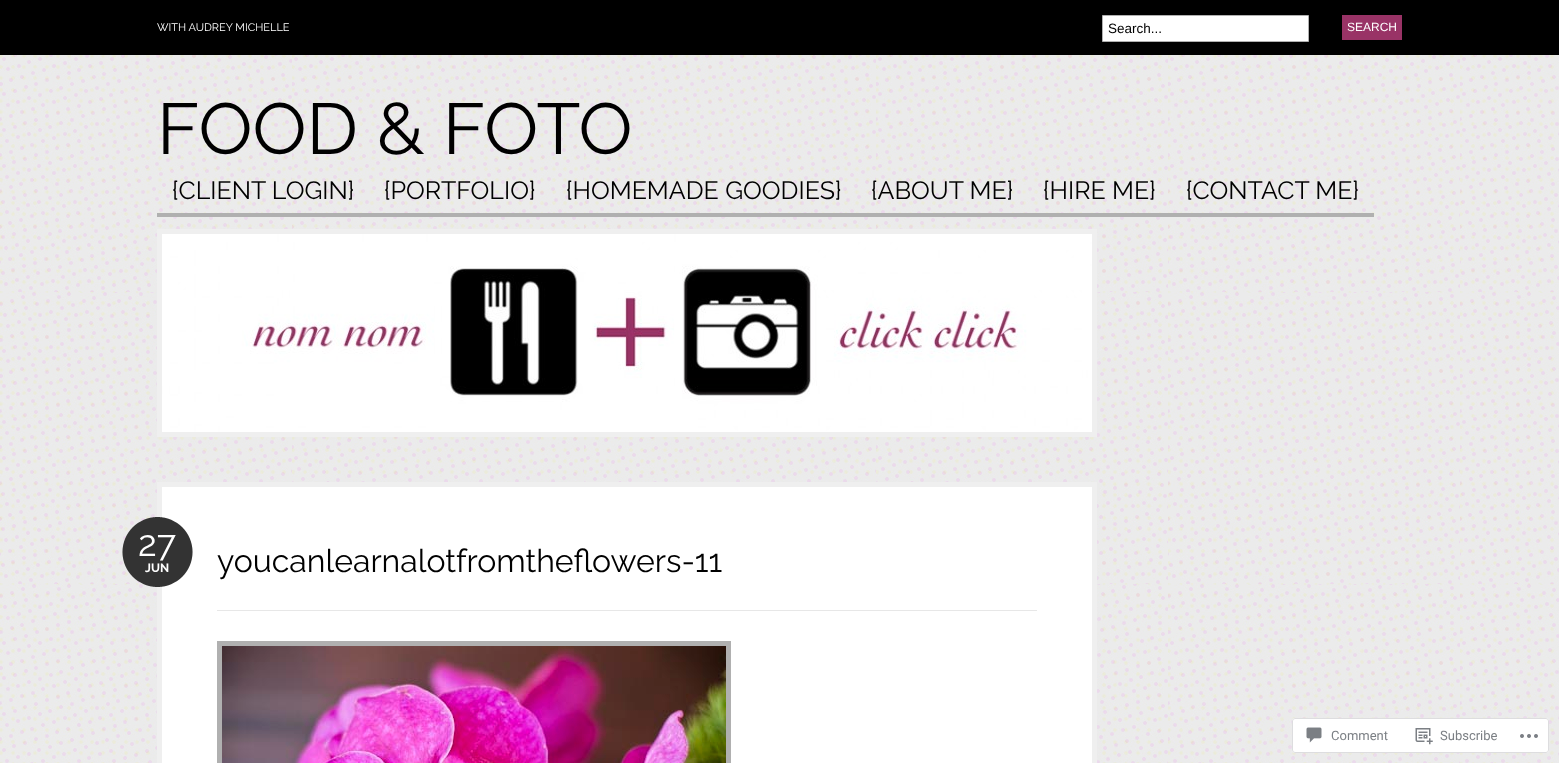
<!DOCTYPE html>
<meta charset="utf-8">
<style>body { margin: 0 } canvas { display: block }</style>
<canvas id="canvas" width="1559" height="763"></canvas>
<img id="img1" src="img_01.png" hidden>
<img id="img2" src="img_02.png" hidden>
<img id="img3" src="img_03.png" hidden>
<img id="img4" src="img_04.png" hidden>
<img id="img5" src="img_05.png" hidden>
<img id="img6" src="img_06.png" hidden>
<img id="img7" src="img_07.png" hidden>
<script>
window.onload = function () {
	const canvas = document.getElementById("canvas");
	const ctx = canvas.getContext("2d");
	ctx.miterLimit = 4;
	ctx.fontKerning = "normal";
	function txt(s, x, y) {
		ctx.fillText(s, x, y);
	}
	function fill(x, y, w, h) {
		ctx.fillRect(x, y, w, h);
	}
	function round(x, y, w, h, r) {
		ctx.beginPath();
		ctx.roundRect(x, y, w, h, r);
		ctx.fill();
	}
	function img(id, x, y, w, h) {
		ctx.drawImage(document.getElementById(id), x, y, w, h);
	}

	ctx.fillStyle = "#FFFFFF";
	fill(0, 0, 1559, 763);
	img("img1", 0, 55, 1559, 708);
	ctx.fillStyle = "#000000";
	fill(0, 0, 1559, 55);
	ctx.fillStyle = "#FFFFFF";
	ctx.beginPath();
	ctx.rect(1102.5, 15.5, 206, 26);
	ctx.fill();
	ctx.strokeStyle = "#B0B0B0";
	ctx.stroke();
	ctx.fillStyle = "#993366";
	fill(1342, 15, 60, 25);
	ctx.fillStyle = "#B0B0B0";
	fill(157, 213, 1217, 4);
	ctx.strokeStyle = "#EFEFEF";
	ctx.lineWidth = 5;
	ctx.strokeRect(159.5, 231.5, 935, 203);
	img("img2", 162, 234, 930, 198);
	ctx.fillStyle = "#FFFFFF";
	ctx.beginPath();
	ctx.rect(159.5, 484.5, 935, 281);
	ctx.fill();
	ctx.stroke();
	img("img3", 122, 517, 71, 70);
	ctx.fillStyle = "#E7E7E7";
	fill(217, 610, 820, 1);
	ctx.strokeStyle = "#B0B0B0";
	ctx.strokeRect(219.5, 643.5, 509, 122);
	img("img4", 222, 646, 504, 117);
	ctx.fillStyle = "rgba(255, 255, 255, 0.98)";
	round(1292, 718, 257, 35, 3);
	ctx.beginPath();
	ctx.roundRect(1292.5, 718.5, 256, 34, 2.5);
	ctx.strokeStyle = "rgba(220, 220, 222, 0.98)";
	ctx.lineWidth = 1;
	ctx.stroke();
	img("img5", 1306, 727, 16, 16);
	img("img6", 1415, 728, 18, 17);
	img("img7", 1520, 734, 18, 4);
	ctx.font = "11px Raleway";
	ctx.fillStyle = "#FFFFFF";
	txt("WITH AUDREY MICHELLE", 157, 31);
	ctx.font = "13.5px Liberation Sans";
	ctx.fillStyle = "#000000";
	txt("Search...", 1108, 33);
	ctx.font = "12px Liberation Sans";
	ctx.fillStyle = "#FFFFFF";
	txt("SEARCH", 1347, 31);
	ctx.font = "72px Raleway";
	ctx.fillStyle = "#000000";
	txt("FOOD & FOTO", 157, 154);
	ctx.font = "25px Raleway";
	txt("{CLIENT LOGIN}", 172, 199);
	txt("{PORTFOLIO}", 384, 199);
	txt("{HOMEMADE GOODIES}", 566, 199);
	txt("{ABOUT ME}", 871, 199);
	txt("{HIRE ME}", 1043, 199);
	txt("{CONTACT ME}", 1186, 199);
	ctx.font = "36px Raleway";
	ctx.fillStyle = "#FFFFFF";
	txt("27", 138, 556);
	ctx.font = "bold 12px Raleway";
	txt("JUN", 145, 572);
	ctx.font = "32px Raleway";
	ctx.fillStyle = "#000000";
	txt("youcanlearnalotfromtheflowers-11", 217, 572);
	ctx.font = "13px Roboto";
	ctx.fillStyle = "#7B7F84";
	txt("Comment", 1331, 740);
	txt("Subscribe", 1440, 740);
};
</script>
